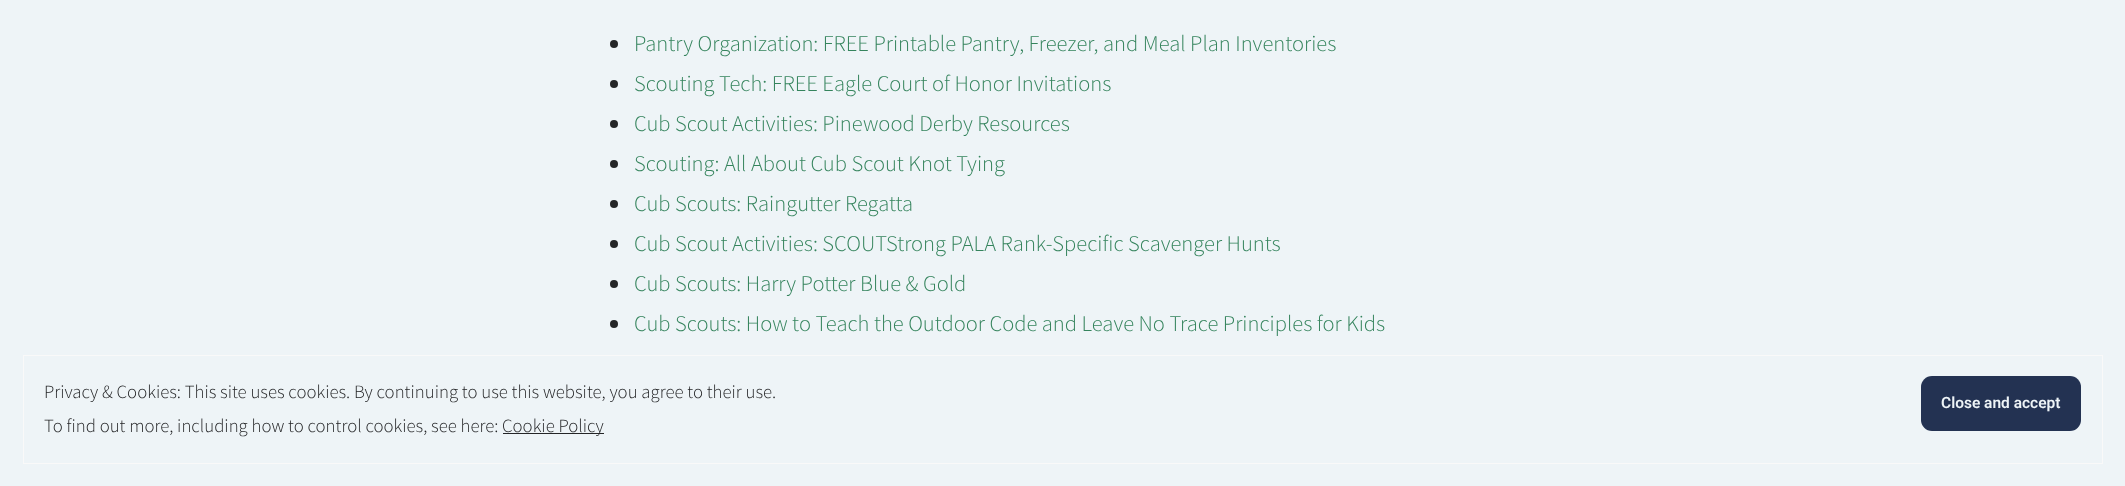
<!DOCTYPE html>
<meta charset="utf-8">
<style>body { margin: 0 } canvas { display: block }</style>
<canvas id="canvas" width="2125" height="486"></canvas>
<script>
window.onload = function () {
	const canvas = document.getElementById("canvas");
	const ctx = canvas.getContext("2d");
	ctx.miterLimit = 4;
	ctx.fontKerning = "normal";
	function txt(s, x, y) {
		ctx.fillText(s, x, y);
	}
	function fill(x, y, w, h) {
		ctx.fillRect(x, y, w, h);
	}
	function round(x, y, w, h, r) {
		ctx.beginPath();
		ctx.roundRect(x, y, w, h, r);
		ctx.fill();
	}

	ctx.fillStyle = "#EEF4F7";
	fill(0, 0, 2125, 486);
	ctx.fillStyle = "#242527";
	ctx.beginPath();
	ctx.arc(614, 44, 4, 0, Math.PI * 2);
	ctx.fill();
	ctx.beginPath();
	ctx.arc(614, 84, 4, 0, Math.PI * 2);
	ctx.fill();
	ctx.beginPath();
	ctx.arc(614, 124, 4, 0, Math.PI * 2);
	ctx.fill();
	ctx.beginPath();
	ctx.arc(614, 164, 4, 0, Math.PI * 2);
	ctx.fill();
	ctx.beginPath();
	ctx.arc(614, 204, 4, 0, Math.PI * 2);
	ctx.fill();
	ctx.beginPath();
	ctx.arc(614, 244, 4, 0, Math.PI * 2);
	ctx.fill();
	ctx.beginPath();
	ctx.arc(614, 284, 4, 0, Math.PI * 2);
	ctx.fill();
	ctx.beginPath();
	ctx.arc(614, 324, 4, 0, Math.PI * 2);
	ctx.fill();
	ctx.strokeStyle = "#F9F9F9";
	ctx.strokeRect(23.5, 355.5, 2079, 108);
	ctx.fillStyle = "#233252";
	round(1921, 376, 160, 55, 11);
	ctx.fillStyle = "#242527";
	fill(503, 433, 101, 1);
	ctx.font = "300 22.5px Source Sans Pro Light";
	ctx.fillStyle = "#35845D";
	txt("Pantry Organization: FREE Printable Pantry, Freezer, and Meal Plan Inventories", 634, 51);
	txt("Scouting Tech: FREE Eagle Court of Honor Invitations", 634, 91);
	txt("Cub Scout Activities: Pinewood Derby Resources", 634, 131);
	txt("Scouting: All About Cub Scout Knot Tying", 634, 171);
	txt("Cub Scouts: Raingutter Regatta", 634, 211);
	txt("Cub Scout Activities: SCOUTStrong PALA Rank-Specific Scavenger Hunts", 634, 251);
	txt("Cub Scouts: Harry Potter Blue & Gold", 634, 291);
	txt("Cub Scouts: How to Teach the Outdoor Code and Leave No Trace Principles for Kids", 634, 331);
	ctx.font = "300 18.75px Source Sans Pro Light";
	ctx.fillStyle = "#242527";
	txt("Privacy & Cookies: This site uses cookies. By continuing to use this website, you agree to their use.", 44, 398);
	ctx.font = "600 15.5px Roboto";
	ctx.fillStyle = "#EEF4F7";
	txt("Close and accept", 1941, 408);
	ctx.font = "300 18.75px Source Sans Pro Light";
	ctx.fillStyle = "#242527";
	txt("To find out more, including how to control cookies, see here:", 44, 432);
	txt("Cookie Policy", 502, 432);
};
</script>
